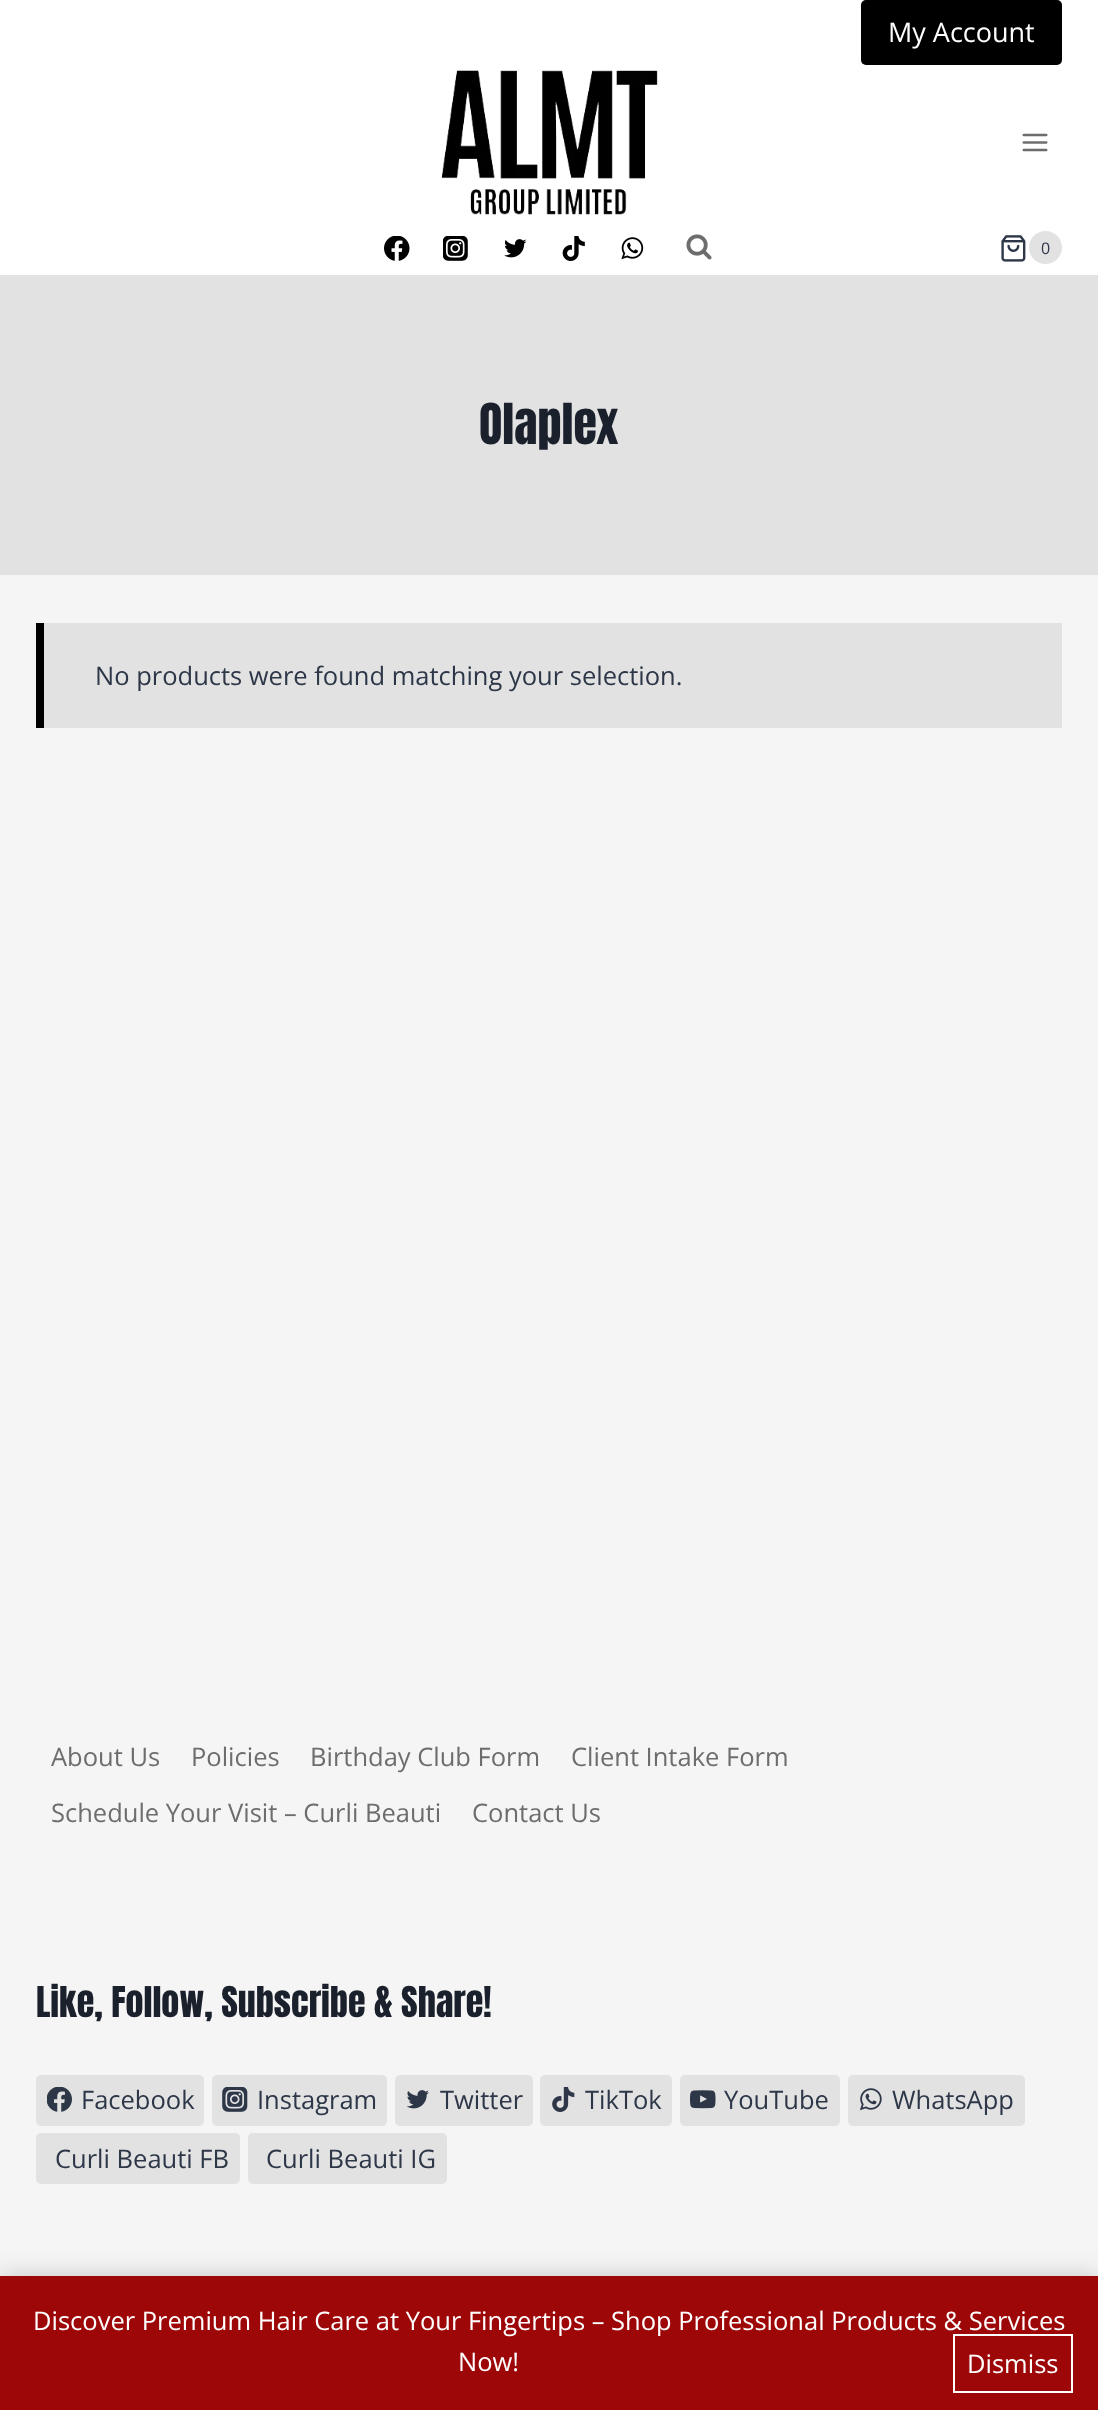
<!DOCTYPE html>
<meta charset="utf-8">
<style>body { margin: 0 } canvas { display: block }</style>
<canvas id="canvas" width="1098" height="2410"></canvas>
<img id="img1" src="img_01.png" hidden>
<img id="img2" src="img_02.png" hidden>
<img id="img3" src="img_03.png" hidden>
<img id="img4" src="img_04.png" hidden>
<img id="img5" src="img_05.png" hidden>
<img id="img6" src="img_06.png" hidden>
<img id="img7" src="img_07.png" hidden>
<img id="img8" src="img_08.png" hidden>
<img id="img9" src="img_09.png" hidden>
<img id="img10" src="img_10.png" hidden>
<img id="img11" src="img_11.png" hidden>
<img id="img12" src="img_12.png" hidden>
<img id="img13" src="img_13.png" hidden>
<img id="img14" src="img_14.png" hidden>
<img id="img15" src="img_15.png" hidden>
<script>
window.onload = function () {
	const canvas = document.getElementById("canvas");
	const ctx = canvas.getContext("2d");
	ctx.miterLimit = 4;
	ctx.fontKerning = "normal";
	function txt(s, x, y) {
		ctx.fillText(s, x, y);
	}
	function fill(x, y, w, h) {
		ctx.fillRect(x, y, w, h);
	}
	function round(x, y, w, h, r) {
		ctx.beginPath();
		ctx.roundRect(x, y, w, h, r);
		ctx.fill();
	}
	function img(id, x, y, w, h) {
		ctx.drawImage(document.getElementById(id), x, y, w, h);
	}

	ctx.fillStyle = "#F5F5F5";
	fill(0, 0, 1098, 2410);
	ctx.fillStyle = "#FFFFFF";
	fill(0, 0, 1098, 275);
	ctx.fillStyle = "#000000";
	round(861, 0, 201, 65, 5);
	img("img1", 441, 70, 217, 145);
	img("img2", 1022, 133, 26, 19);
	img("img3", 384, 236, 26, 25);
	img("img4", 443, 236, 25, 25);
	img("img5", 504, 239, 23, 19);
	img("img6", 562, 236, 23, 25);
	img("img7", 621, 237, 23, 23);
	img("img8", 686, 234, 26, 26);
	img("img9", 1001, 235, 25, 27);
	ctx.fillStyle = "#E2E2E2";
	ctx.beginPath();
	ctx.arc(1045.5, 247.5, 16.5, 0, Math.PI * 2);
	ctx.fill();
	fill(0, 275, 1098, 300);
	fill(44, 623, 1018, 105);
	ctx.fillStyle = "#000000";
	fill(36, 623, 8, 105);
	ctx.fillStyle = "#E2E2E2";
	round(36, 2075, 168, 51, 5);
	img("img10", 47, 2087, 25, 25);
	round(212, 2075, 175, 51, 5);
	img("img11", 222, 2087, 26, 25);
	round(395, 2075, 138, 51, 5);
	img("img12", 406, 2090, 23, 19);
	round(540, 2075, 132, 51, 5);
	img("img13", 552, 2087, 23, 25);
	round(680, 2075, 160, 51, 5);
	img("img14", 690, 2090, 26, 19);
	round(848, 2075, 177, 51, 5);
	img("img15", 859, 2088, 23, 23);
	round(36, 2133, 204, 51, 5);
	round(248, 2133, 199, 51, 5);
	ctx.fillStyle = "rgba(0, 0, 0, 0.2)";
	ctx.filter = "blur(13px)";
	ctx.beginPath();
	ctx.rect(0, 2277, 1098, 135);
	ctx.fill();
	ctx.filter = "none";
	ctx.fillStyle = "#9E0707";
	fill(0, 2276, 1098, 134);
	ctx.strokeStyle = "#FFFFFF";
	ctx.lineWidth = 2;
	ctx.strokeRect(954, 2335, 118, 57);
	ctx.font = "27px Open Sans";
	ctx.fillStyle = "#FFFFFF";
	txt("My Account", 888, 42);
	ctx.font = "16px Open Sans";
	ctx.fillStyle = "#2D3748";
	txt("0", 1041, 254);
	ctx.font = "48px Anton";
	ctx.fillStyle = "#1A202C";
	txt("Olaplex", 479, 444);
	ctx.font = "25.5px Open Sans";
	ctx.fillStyle = "#2D3748";
	txt("No products were found matching your selection.", 95, 685);
	ctx.fillStyle = "#6D6D6D";
	txt("About Us", 51, 1766);
	txt("Policies", 191, 1766);
	txt("Birthday Club Form", 310, 1766);
	txt("Client Intake Form", 571, 1766);
	txt("Schedule Your Visit – Curli Beauti", 51, 1822);
	txt("Contact Us", 472, 1822);
	ctx.font = "36px Anton";
	ctx.fillStyle = "#1A202C";
	txt("Like, Follow, Subscribe & Share!", 36, 2017);
	ctx.font = "25.5px Open Sans";
	ctx.fillStyle = "#2D3748";
	txt("Facebook", 81, 2109);
	txt("Instagram", 257, 2109);
	txt("Twitter", 440, 2109);
	txt("TikTok", 585, 2109);
	txt("YouTube", 724, 2109);
	txt("WhatsApp", 892, 2109);
	txt("Curli Beauti FB", 55, 2168);
	txt("Curli Beauti IG", 266, 2168);
	ctx.fillStyle = "#FFFFFF";
	txt("Discover Premium Hair Care at Your Fingertips – Shop Professional Products & Services", 33, 2330);
	txt("Now!", 458, 2371);
	txt("Dismiss", 967, 2373);
};
</script>
